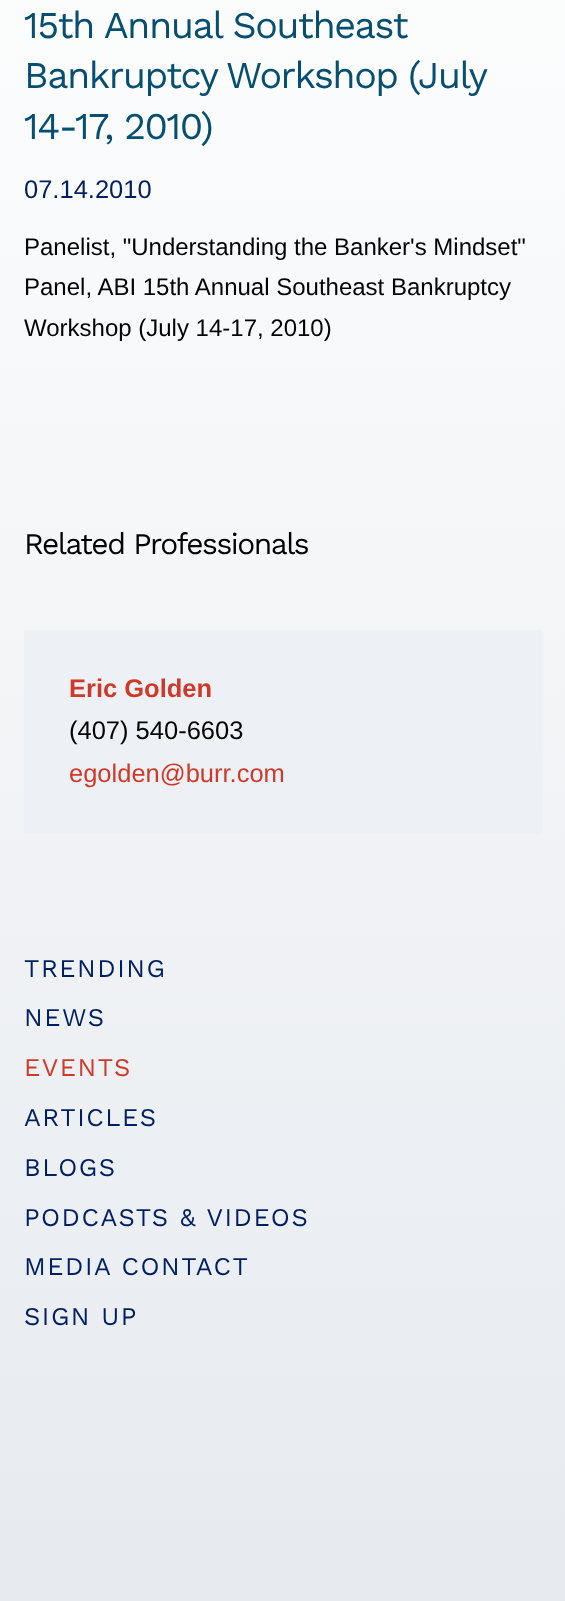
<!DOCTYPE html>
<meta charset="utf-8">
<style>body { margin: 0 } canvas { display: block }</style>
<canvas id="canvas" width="565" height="1601"></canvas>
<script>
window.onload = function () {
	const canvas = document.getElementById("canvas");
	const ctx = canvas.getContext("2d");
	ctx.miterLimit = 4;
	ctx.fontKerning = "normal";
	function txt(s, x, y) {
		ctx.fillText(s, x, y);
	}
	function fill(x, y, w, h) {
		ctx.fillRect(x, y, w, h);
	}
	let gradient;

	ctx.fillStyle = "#FFFFFF";
	fill(0, 0, 565, 1601);
	gradient = ctx.createLinearGradient(283, -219, 283, 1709);
	gradient.addColorStop(0, "#FFFFFF");
	gradient.addColorStop(1, "#E5E9EE");
	ctx.fillStyle = gradient;
	fill(0, 0, 565, 1601);
	ctx.fillStyle = "#EDF0F4";
	fill(24, 630, 518, 204);
	ctx.letterSpacing = "-1.5px";
	ctx.font = "37.75px Work Sans";
	ctx.fillStyle = "#074F71";
	txt("15th Annual Southeast", 24, 38);
	ctx.wordSpacing = "-1px";
	txt("Bankruptcy Workshop (July", 24, 88);
	ctx.wordSpacing = "0px";
	txt("14-17, 2010)", 24, 139);
	ctx.letterSpacing = "0px";
	ctx.font = "25.5px Liberation Sans";
	ctx.fillStyle = "#001F60";
	txt("07.14.2010", 24, 198);
	ctx.font = "24px Liberation Sans";
	ctx.fillStyle = "#030303";
	txt("Panelist, \"Understanding the Banker's Mindset\"", 24, 255);
	txt("Panel, ABI 15th Annual Southeast Bankruptcy", 24, 295);
	txt("Workshop (July 14-17, 2010)", 24, 336);
	ctx.letterSpacing = "-1.5px";
	ctx.font = "30px Work Sans";
	txt("Related Professionals", 24, 554);
	ctx.letterSpacing = "0px";
	ctx.font = "bold 25.5px Liberation Sans";
	ctx.fillStyle = "#CE392A";
	txt("Eric Golden", 69, 697);
	ctx.font = "25.5px Liberation Sans";
	ctx.fillStyle = "#030303";
	txt("(407) 540-6603", 69, 739);
	ctx.fillStyle = "#CE392A";
	txt("egolden@burr.com", 69, 782);
	ctx.letterSpacing = "1.5px";
	ctx.font = "25.5px Work Sans";
	ctx.fillStyle = "#001F60";
	txt("TRENDING", 24, 977);
	txt("NEWS", 24, 1026);
	ctx.fillStyle = "#CE392A";
	txt("EVENTS", 24, 1076);
	ctx.fillStyle = "#001F60";
	txt("ARTICLES", 24, 1126);
	txt("BLOGS", 24, 1176);
	txt("PODCASTS & VIDEOS", 24, 1226);
	txt("MEDIA CONTACT", 24, 1275);
	txt("SIGN UP", 24, 1325);
};
</script>
